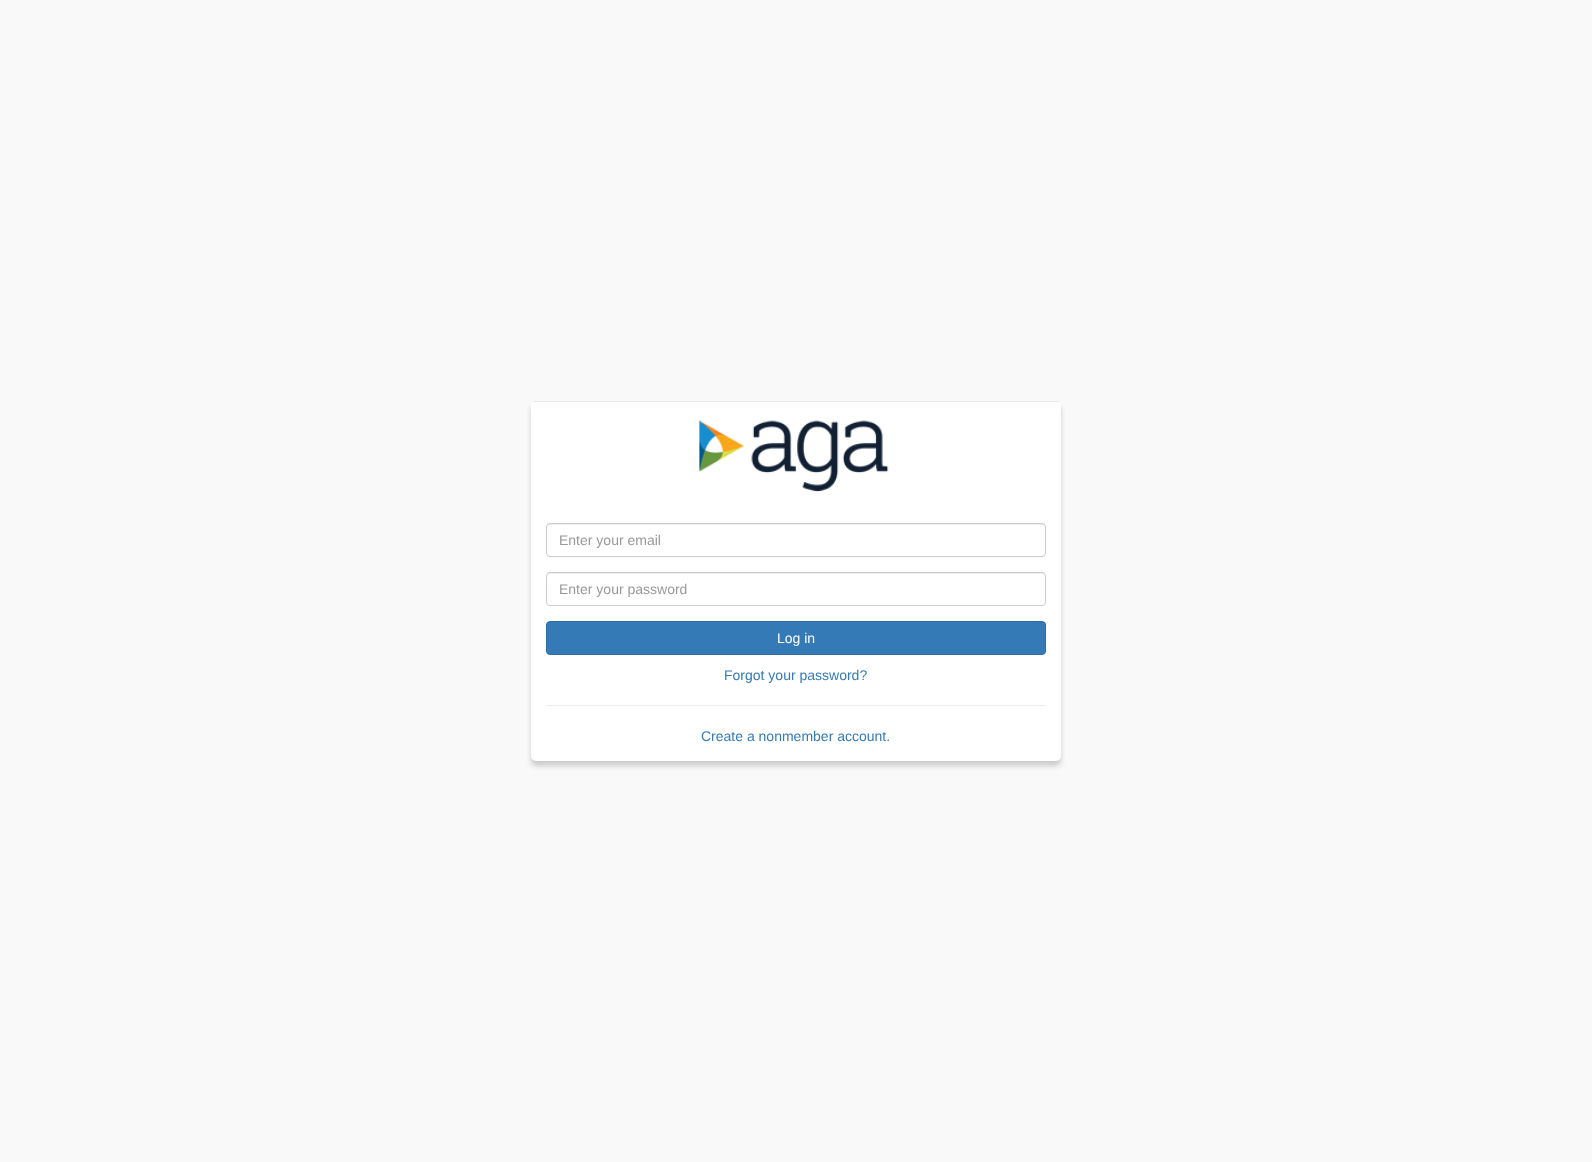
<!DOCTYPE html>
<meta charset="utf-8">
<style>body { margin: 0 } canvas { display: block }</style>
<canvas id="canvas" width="1592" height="1162"></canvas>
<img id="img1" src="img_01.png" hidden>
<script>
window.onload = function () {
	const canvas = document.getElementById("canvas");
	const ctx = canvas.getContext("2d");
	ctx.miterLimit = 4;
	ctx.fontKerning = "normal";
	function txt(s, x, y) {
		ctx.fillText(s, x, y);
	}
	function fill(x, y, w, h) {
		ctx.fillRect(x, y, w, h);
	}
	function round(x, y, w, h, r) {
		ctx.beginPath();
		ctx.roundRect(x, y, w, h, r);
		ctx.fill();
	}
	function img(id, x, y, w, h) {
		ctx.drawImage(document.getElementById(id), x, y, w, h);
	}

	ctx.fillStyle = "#F9F9F9";
	fill(0, 0, 1592, 1162);
	ctx.fillStyle = "#CCCCCC";
	ctx.filter = "blur(2.5px)";
	ctx.beginPath();
	ctx.roundRect(531, 406, 530, 360, 5);
	ctx.fill();
	ctx.filter = "none";
	ctx.fillStyle = "#FFFFFF";
	round(531, 401, 530, 360, 5);
	ctx.fillStyle = "#E9E9E9";
	fill(534, 401, 525, 1);
	img("img1", 699, 420, 190, 72);
	ctx.fillStyle = "#ECECEC";
	ctx.beginPath();
	ctx.moveTo(550, 525);
	ctx.lineTo(1042, 525);
	ctx.bezierCurveTo(1044, 525, 1045, 527, 1045, 528);
	ctx.bezierCurveTo(1045, 526, 1044, 524, 1042, 524);
	ctx.lineTo(550, 524);
	ctx.bezierCurveTo(548, 524, 547, 526, 547, 528);
	ctx.bezierCurveTo(547, 527, 548, 525, 550, 525);
	ctx.closePath();
	ctx.fill();
	ctx.beginPath();
	ctx.roundRect(546.5, 523.5, 499, 33, 3.5);
	ctx.strokeStyle = "#CCCCCC";
	ctx.stroke();
	ctx.beginPath();
	ctx.moveTo(550, 574);
	ctx.lineTo(1042, 574);
	ctx.bezierCurveTo(1044, 574, 1045, 576, 1045, 577);
	ctx.bezierCurveTo(1045, 575, 1044, 573, 1042, 573);
	ctx.lineTo(550, 573);
	ctx.bezierCurveTo(548, 573, 547, 575, 547, 577);
	ctx.bezierCurveTo(547, 576, 548, 574, 550, 574);
	ctx.closePath();
	ctx.fill();
	ctx.beginPath();
	ctx.roundRect(546.5, 572.5, 499, 33, 3.5);
	ctx.stroke();
	ctx.fillStyle = "#337AB7";
	ctx.beginPath();
	ctx.roundRect(546.5, 621.5, 499, 33, 3.5);
	ctx.fill();
	ctx.strokeStyle = "#2E6DA4";
	ctx.stroke();
	ctx.fillStyle = "#EEEEEE";
	fill(546, 705, 500, 1);
	ctx.font = "14px Liberation Sans";
	ctx.fillStyle = "#999999";
	txt("Enter your email", 559, 545);
	txt("Enter your password", 559, 594);
	ctx.fillStyle = "#FFFFFF";
	txt("Log in", 777, 643);
	ctx.fillStyle = "#337AB7";
	txt("Forgot your password?", 724, 680);
	txt("Create a nonmember account.", 701, 741);
};
</script>
